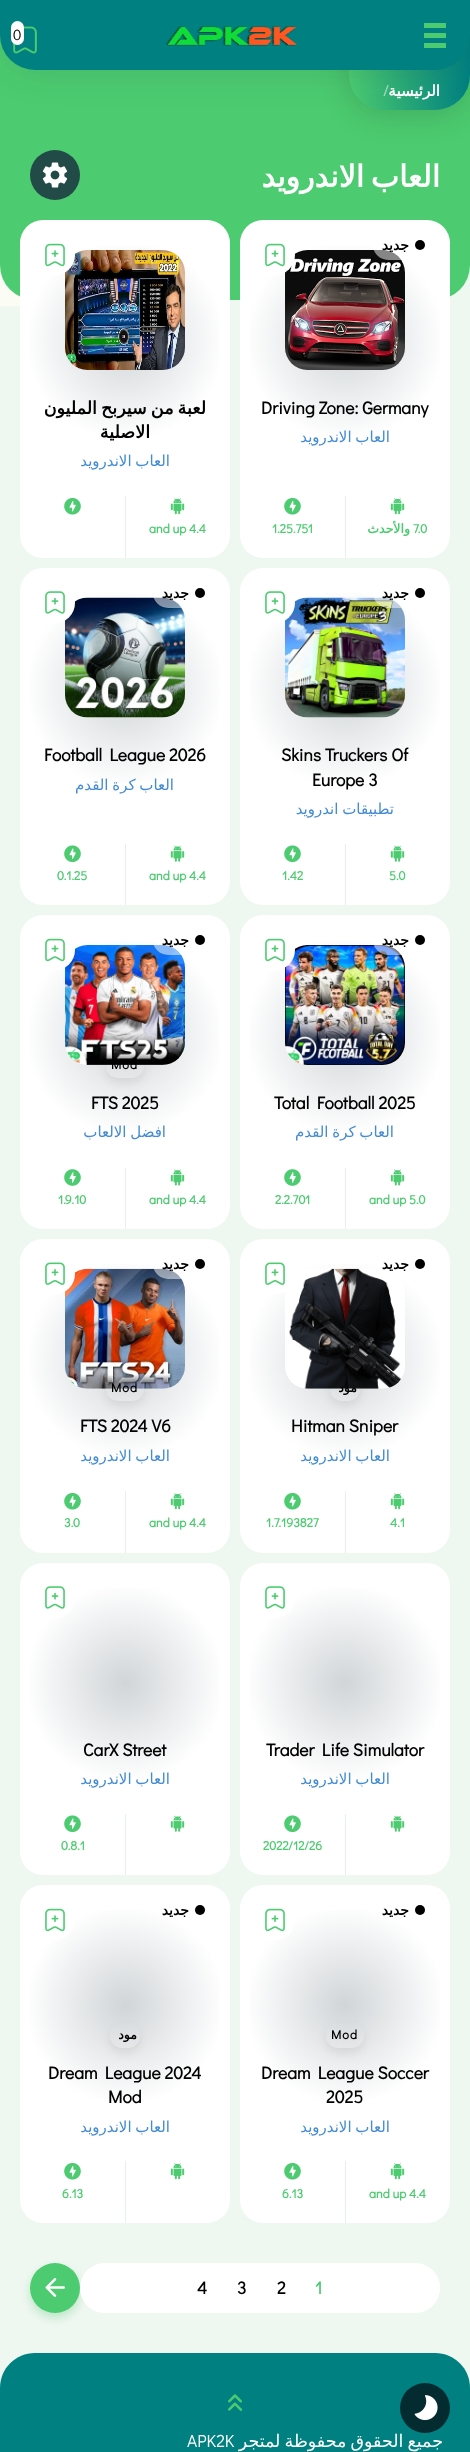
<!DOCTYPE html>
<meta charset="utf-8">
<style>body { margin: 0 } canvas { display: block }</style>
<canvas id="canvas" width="470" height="2452"></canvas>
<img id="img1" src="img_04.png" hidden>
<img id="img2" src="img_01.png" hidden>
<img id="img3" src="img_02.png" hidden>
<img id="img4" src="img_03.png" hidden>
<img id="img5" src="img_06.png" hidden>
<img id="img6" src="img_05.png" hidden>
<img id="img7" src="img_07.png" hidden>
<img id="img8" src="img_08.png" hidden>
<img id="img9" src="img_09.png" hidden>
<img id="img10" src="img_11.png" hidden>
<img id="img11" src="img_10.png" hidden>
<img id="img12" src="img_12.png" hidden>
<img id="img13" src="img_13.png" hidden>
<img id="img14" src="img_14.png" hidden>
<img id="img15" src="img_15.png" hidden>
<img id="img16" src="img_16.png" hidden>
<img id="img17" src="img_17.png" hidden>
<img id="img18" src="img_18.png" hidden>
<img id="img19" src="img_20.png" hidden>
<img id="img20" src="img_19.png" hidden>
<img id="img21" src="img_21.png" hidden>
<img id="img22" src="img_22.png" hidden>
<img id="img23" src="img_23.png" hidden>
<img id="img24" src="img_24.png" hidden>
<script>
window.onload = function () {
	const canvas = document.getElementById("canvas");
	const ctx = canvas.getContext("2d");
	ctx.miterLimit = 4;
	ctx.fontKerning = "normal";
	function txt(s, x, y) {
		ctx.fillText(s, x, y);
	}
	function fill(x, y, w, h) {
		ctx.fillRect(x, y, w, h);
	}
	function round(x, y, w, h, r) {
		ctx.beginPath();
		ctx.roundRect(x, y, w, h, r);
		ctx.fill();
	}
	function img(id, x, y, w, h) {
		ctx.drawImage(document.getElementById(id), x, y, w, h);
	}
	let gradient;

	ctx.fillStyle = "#EFF7F1";
	fill(0, 0, 470, 2452);
	img("img1", 0, 265, 20, 42);
	ctx.fillStyle = "#4CCB70";
	ctx.beginPath();
	ctx.roundRect(0, 0, 470, 300, [0, 0, 35, 35]);
	ctx.fill();
	ctx.fillStyle = "rgba(0, 0, 0, 0.15)";
	ctx.filter = "blur(15px)";
	ctx.beginPath();
	ctx.roundRect(349, 25, 121, 90, 35);
	ctx.fill();
	ctx.filter = "none";
	gradient = ctx.createLinearGradient(349, 65, 470, 65);
	gradient.addColorStop(0, "#4CCB70");
	gradient.addColorStop(1, "#008080");
	ctx.fillStyle = gradient;
	ctx.beginPath();
	ctx.roundRect(349, 20, 121, 90, [0, 0, 35, 35]);
	ctx.fill();
	ctx.fillStyle = "rgba(23, 43, 61, 0.2)";
	ctx.filter = "blur(20px)";
	ctx.beginPath();
	ctx.roundRect(10, 13, 450, 50, 25);
	ctx.fill();
	ctx.filter = "none";
	ctx.fillStyle = "#008080";
	ctx.beginPath();
	ctx.roundRect(0, 0, 470, 70, [0, 0, 35, 35]);
	ctx.fill();
	img("img2", 13, 26, 24, 28);
	ctx.fillStyle = "#FFFFFF";
	round(11, 21, 13, 24, 6.5);
	img("img3", 166, 26, 131, 20);
	ctx.fillStyle = "#4CCB70";
	fill(424, 23, 22, 5);
	fill(424, 33, 22, 5);
	fill(424, 43, 22, 5);
	ctx.fillStyle = "#224B47";
	ctx.beginPath();
	ctx.arc(55, 175, 25, 0, Math.PI * 2);
	ctx.fill();
	img("img4", 42, 162, 26, 26);
	ctx.fillStyle = "#FFFFFF";
	round(20, 220, 210, 338, 23);
	gradient = ctx.createRadialGradient(125, 340, 0, 125, 340, 100);
	gradient.addColorStop(0, "#D1D5D8");
	gradient.addColorStop(1, "#FFFFFF");
	ctx.fillStyle = gradient;
	fill(30, 245, 190, 190);
	img("img5", 65, 250, 120, 120);
	ctx.fillStyle = "#FFFFFF";
	ctx.beginPath();
	ctx.arc(55, 255, 20, 0, Math.PI * 2);
	ctx.fill();
	img("img6", 45, 243, 20, 24);
	img("img7", 64, 497, 17, 18);
	ctx.fillStyle = "#E6EFF4";
	fill(125, 496, 1, 62);
	img("img8", 170, 498, 15, 17);
	ctx.fillStyle = "#FFFFFF";
	round(240, 220, 210, 338, 23);
	gradient = ctx.createRadialGradient(345, 340, 0, 345, 340, 100);
	gradient.addColorStop(0, "#D1D5D8");
	gradient.addColorStop(1, "#FFFFFF");
	ctx.fillStyle = gradient;
	fill(250, 245, 190, 190);
	img("img9", 285, 250, 120, 120);
	ctx.fillStyle = "#FFFFFF";
	ctx.beginPath();
	ctx.arc(275, 255, 20, 0, Math.PI * 2);
	ctx.fill();
	img("img6", 265, 243, 20, 24);
	ctx.fillStyle = "rgba(255, 255, 255, 0.5)";
	round(373, 230, 67, 30, 15);
	ctx.fillStyle = "#000000";
	ctx.beginPath();
	ctx.arc(420, 245, 5, 0, Math.PI * 2);
	ctx.fill();
	img("img7", 284, 497, 17, 18);
	ctx.fillStyle = "#E6EFF4";
	fill(345, 496, 1, 62);
	img("img8", 390, 498, 15, 17);
	ctx.fillStyle = "#FFFFFF";
	round(20, 568, 210, 337, 23);
	gradient = ctx.createRadialGradient(125, 688, 0, 125, 688, 100);
	gradient.addColorStop(0, "#D1D5D8");
	gradient.addColorStop(1, "#FFFFFF");
	ctx.fillStyle = gradient;
	fill(30, 593, 190, 190);
	img("img10", 65, 597, 120, 121);
	ctx.fillStyle = "#FFFFFF";
	ctx.beginPath();
	ctx.arc(55, 603, 20, 0, Math.PI * 2);
	ctx.fill();
	img("img11", 45, 591, 20, 23);
	ctx.fillStyle = "rgba(255, 255, 255, 0.5)";
	round(153, 578, 67, 30, 15);
	ctx.fillStyle = "#000000";
	ctx.beginPath();
	ctx.arc(200, 593, 5, 0, Math.PI * 2);
	ctx.fill();
	img("img12", 64, 845, 17, 18);
	ctx.fillStyle = "#E6EFF4";
	fill(125, 844, 1, 61);
	img("img13", 170, 845, 15, 17);
	ctx.fillStyle = "#FFFFFF";
	round(240, 568, 210, 337, 23);
	gradient = ctx.createRadialGradient(345, 688, 0, 345, 688, 100);
	gradient.addColorStop(0, "#D1D5D8");
	gradient.addColorStop(1, "#FFFFFF");
	ctx.fillStyle = gradient;
	fill(250, 593, 190, 190);
	img("img14", 285, 597, 120, 121);
	ctx.fillStyle = "#FFFFFF";
	ctx.beginPath();
	ctx.arc(275, 603, 20, 0, Math.PI * 2);
	ctx.fill();
	img("img11", 265, 591, 20, 23);
	ctx.fillStyle = "rgba(255, 255, 255, 0.5)";
	round(373, 578, 67, 30, 15);
	ctx.fillStyle = "#000000";
	ctx.beginPath();
	ctx.arc(420, 593, 5, 0, Math.PI * 2);
	ctx.fill();
	img("img12", 284, 845, 17, 18);
	ctx.fillStyle = "#E6EFF4";
	fill(345, 844, 1, 61);
	img("img13", 390, 845, 15, 17);
	ctx.fillStyle = "#FFFFFF";
	round(20, 915, 210, 314, 23);
	gradient = ctx.createRadialGradient(125, 1035, 0, 125, 1035, 100);
	gradient.addColorStop(0, "#D1D5D8");
	gradient.addColorStop(1, "#FFFFFF");
	ctx.fillStyle = gradient;
	fill(30, 940, 190, 190);
	img("img15", 65, 945, 120, 120);
	ctx.fillStyle = "#FFFFFF";
	ctx.beginPath();
	ctx.arc(55, 950, 20, 0, Math.PI * 2);
	ctx.fill();
	img("img6", 45, 938, 20, 24);
	ctx.fillStyle = "rgba(255, 255, 255, 0.5)";
	round(153, 925, 67, 30, 15);
	ctx.fillStyle = "#000000";
	ctx.beginPath();
	ctx.arc(200, 940, 5, 0, Math.PI * 2);
	ctx.fill();
	ctx.save();
	ctx.beginPath();
	ctx.moveTo(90, 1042);
	ctx.lineTo(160, 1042);
	ctx.lineTo(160, 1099);
	ctx.lineTo(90, 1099);
	ctx.closePath();
	ctx.moveTo(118.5, 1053);
	ctx.lineTo(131.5, 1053);
	ctx.bezierCurveTo(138.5, 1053, 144, 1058.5, 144, 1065.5);
	ctx.bezierCurveTo(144, 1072.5, 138.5, 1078, 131.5, 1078);
	ctx.lineTo(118.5, 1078);
	ctx.bezierCurveTo(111.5, 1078, 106, 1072.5, 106, 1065.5);
	ctx.bezierCurveTo(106, 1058.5, 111.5, 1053, 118.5, 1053);
	ctx.closePath();
	ctx.clip("evenodd");
	ctx.fillStyle = "rgba(0, 0, 0, 0.07)";
	ctx.filter = "blur(5px)";
	ctx.beginPath();
	ctx.roundRect(106, 1058, 38, 25, 12.5);
	ctx.fill();
	ctx.filter = "none";
	ctx.restore();
	img("img16", 64, 1169, 17, 17);
	ctx.fillStyle = "#E6EFF4";
	fill(125, 1168, 1, 61);
	img("img17", 170, 1169, 15, 17);
	ctx.fillStyle = "#FFFFFF";
	round(240, 915, 210, 314, 23);
	gradient = ctx.createRadialGradient(345, 1035, 0, 345, 1035, 100);
	gradient.addColorStop(0, "#D1D5D8");
	gradient.addColorStop(1, "#FFFFFF");
	ctx.fillStyle = gradient;
	fill(250, 940, 190, 190);
	img("img18", 285, 945, 120, 120);
	ctx.fillStyle = "#FFFFFF";
	ctx.beginPath();
	ctx.arc(275, 950, 20, 0, Math.PI * 2);
	ctx.fill();
	img("img6", 265, 938, 20, 24);
	ctx.fillStyle = "rgba(255, 255, 255, 0.5)";
	round(373, 925, 67, 30, 15);
	ctx.fillStyle = "#000000";
	ctx.beginPath();
	ctx.arc(420, 940, 5, 0, Math.PI * 2);
	ctx.fill();
	img("img16", 284, 1169, 17, 17);
	ctx.fillStyle = "#E6EFF4";
	fill(345, 1168, 1, 61);
	img("img17", 390, 1169, 15, 17);
	ctx.fillStyle = "#FFFFFF";
	round(20, 1239, 210, 314, 23);
	gradient = ctx.createRadialGradient(125, 1359, 0, 125, 1359, 100);
	gradient.addColorStop(0, "#D1D5D8");
	gradient.addColorStop(1, "#FFFFFF");
	ctx.fillStyle = gradient;
	fill(30, 1264, 190, 190);
	img("img19", 65, 1268, 120, 121);
	ctx.fillStyle = "#FFFFFF";
	ctx.beginPath();
	ctx.arc(55, 1274, 20, 0, Math.PI * 2);
	ctx.fill();
	img("img20", 45, 1262, 20, 23);
	ctx.fillStyle = "rgba(255, 255, 255, 0.5)";
	round(153, 1249, 67, 30, 15);
	ctx.fillStyle = "#000000";
	ctx.beginPath();
	ctx.arc(200, 1264, 5, 0, Math.PI * 2);
	ctx.fill();
	ctx.save();
	ctx.beginPath();
	ctx.moveTo(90, 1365);
	ctx.lineTo(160, 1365);
	ctx.lineTo(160, 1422);
	ctx.lineTo(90, 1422);
	ctx.closePath();
	ctx.moveTo(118.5, 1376);
	ctx.lineTo(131.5, 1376);
	ctx.bezierCurveTo(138.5, 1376, 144, 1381.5, 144, 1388.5);
	ctx.bezierCurveTo(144, 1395.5, 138.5, 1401, 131.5, 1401);
	ctx.lineTo(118.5, 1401);
	ctx.bezierCurveTo(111.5, 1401, 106, 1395.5, 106, 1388.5);
	ctx.bezierCurveTo(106, 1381.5, 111.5, 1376, 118.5, 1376);
	ctx.closePath();
	ctx.clip("evenodd");
	ctx.fillStyle = "rgba(0, 0, 0, 0.07)";
	ctx.filter = "blur(5px)";
	ctx.beginPath();
	ctx.roundRect(106, 1381, 38, 25, 12.5);
	ctx.fill();
	ctx.filter = "none";
	ctx.restore();
	img("img7", 64, 1492, 17, 18);
	ctx.fillStyle = "#E6EFF4";
	fill(125, 1491, 1, 62);
	img("img8", 170, 1493, 15, 17);
	ctx.fillStyle = "#FFFFFF";
	round(240, 1239, 210, 314, 23);
	gradient = ctx.createRadialGradient(345, 1359, 0, 345, 1359, 100);
	gradient.addColorStop(0, "#D1D5D8");
	gradient.addColorStop(1, "#FFFFFF");
	ctx.fillStyle = gradient;
	fill(250, 1264, 190, 190);
	img("img21", 285, 1268, 120, 121);
	ctx.fillStyle = "#FFFFFF";
	ctx.beginPath();
	ctx.arc(275, 1274, 20, 0, Math.PI * 2);
	ctx.fill();
	img("img20", 265, 1262, 20, 23);
	ctx.fillStyle = "#000000";
	ctx.beginPath();
	ctx.arc(420, 1264, 5, 0, Math.PI * 2);
	ctx.fill();
	ctx.save();
	ctx.beginPath();
	ctx.moveTo(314, 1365);
	ctx.lineTo(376, 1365);
	ctx.lineTo(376, 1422);
	ctx.lineTo(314, 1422);
	ctx.closePath();
	ctx.moveTo(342.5, 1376);
	ctx.lineTo(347.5, 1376);
	ctx.bezierCurveTo(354.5, 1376, 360, 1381.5, 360, 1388.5);
	ctx.bezierCurveTo(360, 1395.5, 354.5, 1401, 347.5, 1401);
	ctx.lineTo(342.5, 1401);
	ctx.bezierCurveTo(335.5, 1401, 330, 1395.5, 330, 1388.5);
	ctx.bezierCurveTo(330, 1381.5, 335.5, 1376, 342.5, 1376);
	ctx.closePath();
	ctx.clip("evenodd");
	ctx.fillStyle = "rgba(0, 0, 0, 0.07)";
	ctx.filter = "blur(5px)";
	ctx.beginPath();
	ctx.roundRect(330, 1381, 30, 25, 12.5);
	ctx.fill();
	ctx.filter = "none";
	ctx.restore();
	img("img7", 284, 1492, 17, 18);
	ctx.fillStyle = "#E6EFF4";
	fill(345, 1491, 1, 62);
	img("img8", 390, 1493, 15, 17);
	ctx.fillStyle = "#FFFFFF";
	round(20, 1563, 210, 312, 23);
	gradient = ctx.createRadialGradient(125, 1683, 0, 125, 1683, 100);
	gradient.addColorStop(0, "#D1D5D8");
	gradient.addColorStop(1, "#FFFFFF");
	ctx.fillStyle = gradient;
	fill(30, 1588, 190, 190);
	ctx.fillStyle = "#FFFFFF";
	ctx.beginPath();
	ctx.arc(55, 1598, 20, 0, Math.PI * 2);
	ctx.fill();
	img("img11", 45, 1586, 20, 23);
	ctx.fillStyle = "#E6EFF4";
	fill(125, 1814, 1, 61);
	img("img13", 170, 1815, 15, 17);
	img("img12", 64, 1815, 17, 18);
	ctx.fillStyle = "#FFFFFF";
	round(240, 1563, 210, 312, 23);
	gradient = ctx.createRadialGradient(345, 1683, 0, 345, 1683, 100);
	gradient.addColorStop(0, "#D1D5D8");
	gradient.addColorStop(1, "#FFFFFF");
	ctx.fillStyle = gradient;
	fill(250, 1588, 190, 190);
	ctx.fillStyle = "#FFFFFF";
	ctx.beginPath();
	ctx.arc(275, 1598, 20, 0, Math.PI * 2);
	ctx.fill();
	img("img11", 265, 1586, 20, 23);
	ctx.fillStyle = "#E6EFF4";
	fill(345, 1814, 1, 61);
	img("img13", 390, 1815, 15, 17);
	img("img12", 284, 1815, 17, 18);
	ctx.fillStyle = "#FFFFFF";
	round(20, 1885, 210, 338, 23);
	gradient = ctx.createRadialGradient(125, 2005, 0, 125, 2005, 100);
	gradient.addColorStop(0, "#D1D5D8");
	gradient.addColorStop(1, "#FFFFFF");
	ctx.fillStyle = gradient;
	fill(30, 1910, 190, 190);
	ctx.fillStyle = "#FFFFFF";
	ctx.beginPath();
	ctx.arc(55, 1920, 20, 0, Math.PI * 2);
	ctx.fill();
	img("img6", 45, 1908, 20, 24);
	ctx.fillStyle = "#000000";
	ctx.beginPath();
	ctx.arc(200, 1910, 5, 0, Math.PI * 2);
	ctx.fill();
	ctx.save();
	ctx.beginPath();
	ctx.moveTo(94, 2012);
	ctx.lineTo(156, 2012);
	ctx.lineTo(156, 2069);
	ctx.lineTo(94, 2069);
	ctx.closePath();
	ctx.moveTo(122.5, 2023);
	ctx.lineTo(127.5, 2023);
	ctx.bezierCurveTo(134.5, 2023, 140, 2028.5, 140, 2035.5);
	ctx.bezierCurveTo(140, 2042.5, 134.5, 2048, 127.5, 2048);
	ctx.lineTo(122.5, 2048);
	ctx.bezierCurveTo(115.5, 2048, 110, 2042.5, 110, 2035.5);
	ctx.bezierCurveTo(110, 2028.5, 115.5, 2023, 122.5, 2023);
	ctx.closePath();
	ctx.clip("evenodd");
	ctx.fillStyle = "rgba(0, 0, 0, 0.07)";
	ctx.filter = "blur(5px)";
	ctx.beginPath();
	ctx.roundRect(110, 2028, 30, 25, 12.5);
	ctx.fill();
	ctx.filter = "none";
	ctx.restore();
	ctx.fillStyle = "#E6EFF4";
	fill(125, 2161, 1, 62);
	img("img8", 170, 2163, 15, 17);
	img("img7", 64, 2162, 17, 18);
	ctx.fillStyle = "#FFFFFF";
	round(240, 1885, 210, 338, 23);
	gradient = ctx.createRadialGradient(345, 2005, 0, 345, 2005, 100);
	gradient.addColorStop(0, "#D1D5D8");
	gradient.addColorStop(1, "#FFFFFF");
	ctx.fillStyle = gradient;
	fill(250, 1910, 190, 190);
	ctx.fillStyle = "#FFFFFF";
	ctx.beginPath();
	ctx.arc(275, 1920, 20, 0, Math.PI * 2);
	ctx.fill();
	img("img6", 265, 1908, 20, 24);
	ctx.fillStyle = "#000000";
	ctx.beginPath();
	ctx.arc(420, 1910, 5, 0, Math.PI * 2);
	ctx.fill();
	ctx.save();
	ctx.beginPath();
	ctx.moveTo(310, 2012);
	ctx.lineTo(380, 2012);
	ctx.lineTo(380, 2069);
	ctx.lineTo(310, 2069);
	ctx.closePath();
	ctx.moveTo(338.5, 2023);
	ctx.lineTo(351.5, 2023);
	ctx.bezierCurveTo(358.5, 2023, 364, 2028.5, 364, 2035.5);
	ctx.bezierCurveTo(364, 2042.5, 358.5, 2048, 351.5, 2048);
	ctx.lineTo(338.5, 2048);
	ctx.bezierCurveTo(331.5, 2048, 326, 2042.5, 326, 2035.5);
	ctx.bezierCurveTo(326, 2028.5, 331.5, 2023, 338.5, 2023);
	ctx.closePath();
	ctx.clip("evenodd");
	ctx.fillStyle = "rgba(0, 0, 0, 0.07)";
	ctx.filter = "blur(5px)";
	ctx.beginPath();
	ctx.roundRect(326, 2028, 38, 25, 12.5);
	ctx.fill();
	ctx.filter = "none";
	ctx.restore();
	img("img7", 284, 2162, 17, 18);
	ctx.fillStyle = "#E6EFF4";
	fill(345, 2161, 1, 62);
	img("img8", 390, 2163, 15, 17);
	ctx.fillStyle = "rgba(69, 195, 104, 0.3)";
	ctx.filter = "blur(5px)";
	ctx.beginPath();
	ctx.roundRect(30, 2268, 50, 50, 25);
	ctx.fill();
	ctx.filter = "none";
	ctx.fillStyle = "#4CCB70";
	ctx.beginPath();
	ctx.arc(55, 2288, 25, 0, Math.PI * 2);
	ctx.fill();
	img("img22", 45, 2278, 20, 19);
	ctx.fillStyle = "#FFFFFF";
	round(80, 2263, 360, 50, 25);
	gradient = ctx.createLinearGradient(80, 2288, 120, 2288);
	gradient.addColorStop(0, "#FFFFFF");
	gradient.addColorStop(1, "rgba(255, 255, 255, 0)");
	ctx.fillStyle = gradient;
	ctx.beginPath();
	ctx.roundRect(80, 2263, 40, 50, [25, 0, 0, 25]);
	ctx.fill();
	gradient = ctx.createLinearGradient(440, 2288, 400, 2288);
	gradient.addColorStop(0, "#FFFFFF");
	gradient.addColorStop(1, "rgba(255, 255, 255, 0)");
	ctx.fillStyle = gradient;
	ctx.beginPath();
	ctx.roundRect(400, 2263, 40, 50, [0, 25, 25, 0]);
	ctx.fill();
	ctx.fillStyle = "#008080";
	ctx.beginPath();
	ctx.moveTo(35, 2353);
	ctx.lineTo(435, 2353);
	ctx.bezierCurveTo(454.5, 2353, 470, 2368.5, 470, 2388);
	ctx.lineTo(470, 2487);
	ctx.lineTo(0, 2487);
	ctx.lineTo(0, 2388);
	ctx.bezierCurveTo(0, 2368.5, 15.5, 2353, 35, 2353);
	ctx.closePath();
	ctx.fill();
	ctx.fillStyle = "#042B30";
	ctx.beginPath();
	ctx.arc(425, 2408, 25, 0, Math.PI * 2);
	ctx.fill();
	img("img23", 414, 2395, 24, 26);
	img("img24", 228, 2394, 15, 17);
	ctx.font = "15px Didact Gothic";
	ctx.fillStyle = "#000000";
	txt("0", 13, 40);
	ctx.font = "bold 15px Didact Gothic";
	ctx.fillStyle = "#9ADABA";
	txt("/", 383, 96);
	ctx.direction = "rtl";
	ctx.font = "bold 15px DejaVu Sans";
	ctx.fillStyle = "#FFFFFF";
	txt("الرئيسية", 440, 96);
	ctx.wordSpacing = "-3px";
	ctx.font = "bold 30px DejaVu Sans";
	txt("العاب الاندرويد", 440, 187);
	ctx.wordSpacing = "-1.5px";
	ctx.font = "bold 17.5px DejaVu Sans";
	ctx.fillStyle = "#000000";
	txt("لعبة من سيربح المليون", 206, 414);
	ctx.wordSpacing = "0px";
	txt("الاصلية", 150, 438);
	ctx.wordSpacing = "-1px";
	ctx.font = "15px DejaVu Sans";
	ctx.fillStyle = "#438BD3";
	txt("العاب الاندرويد", 170, 466);
	ctx.wordSpacing = "0px";
	ctx.direction = "ltr";
	ctx.font = "bold 12.5px Didact Gothic";
	ctx.fillStyle = "#4CCB70";
	txt("and up 4.4", 149, 533);
	ctx.direction = "rtl";
	ctx.font = "bold 14px DejaVu Sans";
	ctx.fillStyle = "#000000";
	txt("جديد", 409, 250);
	ctx.direction = "ltr";
	ctx.font = "bold 17.5px Didact Gothic";
	txt("Driving Zone: Germany", 261, 414);
	ctx.wordSpacing = "-1px";
	ctx.direction = "rtl";
	ctx.font = "15px DejaVu Sans";
	ctx.fillStyle = "#438BD3";
	txt("العاب الاندرويد", 390, 442);
	ctx.wordSpacing = "0px";
	ctx.direction = "ltr";
	ctx.font = "bold 12.5px Didact Gothic";
	ctx.fillStyle = "#4CCB70";
	txt("1.25.751", 272, 533);
	ctx.direction = "rtl";
	ctx.font = "bold 12.5px DejaVu Sans";
	txt("والأحدث", 410, 533);
	ctx.direction = "ltr";
	ctx.font = "bold 12.5px Didact Gothic";
	txt("7.0", 413, 533);
	ctx.direction = "rtl";
	ctx.font = "bold 14px DejaVu Sans";
	ctx.fillStyle = "#000000";
	txt("جديد", 189, 598);
	ctx.direction = "ltr";
	ctx.font = "bold 17.5px Didact Gothic";
	txt("Football League 2026", 44, 761);
	ctx.wordSpacing = "-1px";
	ctx.direction = "rtl";
	ctx.font = "15px DejaVu Sans";
	ctx.fillStyle = "#438BD3";
	txt("العاب كرة القدم", 174, 790);
	ctx.wordSpacing = "0px";
	ctx.direction = "ltr";
	ctx.font = "bold 12.5px Didact Gothic";
	ctx.fillStyle = "#4CCB70";
	txt("0.1.25", 57, 880);
	txt("and up 4.4", 149, 880);
	ctx.direction = "rtl";
	ctx.font = "bold 14px DejaVu Sans";
	ctx.fillStyle = "#000000";
	txt("جديد", 409, 598);
	ctx.direction = "ltr";
	ctx.font = "bold 17.5px Didact Gothic";
	txt("Skins Truckers Of", 281, 761);
	txt("Europe 3", 312, 786);
	ctx.wordSpacing = "-1px";
	ctx.direction = "rtl";
	ctx.font = "15px DejaVu Sans";
	ctx.fillStyle = "#438BD3";
	txt("تطبيقات اندرويد", 394, 814);
	ctx.wordSpacing = "0px";
	ctx.direction = "ltr";
	ctx.font = "bold 12.5px Didact Gothic";
	ctx.fillStyle = "#4CCB70";
	txt("1.42", 282, 880);
	txt("5.0", 389, 880);
	ctx.direction = "rtl";
	ctx.font = "bold 14px DejaVu Sans";
	ctx.fillStyle = "#000000";
	txt("جديد", 189, 945);
	ctx.letterSpacing = "1px";
	ctx.direction = "ltr";
	ctx.font = "bold 12.5px Didact Gothic";
	txt("Mod", 111, 1069);
	ctx.letterSpacing = "0px";
	ctx.font = "bold 17.5px Didact Gothic";
	txt("FTS 2025", 91, 1109);
	ctx.wordSpacing = "-1px";
	ctx.direction = "rtl";
	ctx.font = "15px DejaVu Sans";
	ctx.fillStyle = "#438BD3";
	txt("افضل الالعاب", 166, 1137);
	ctx.wordSpacing = "0px";
	ctx.direction = "ltr";
	ctx.font = "bold 12.5px Didact Gothic";
	ctx.fillStyle = "#4CCB70";
	txt("1.9.10", 58, 1204);
	txt("and up 4.4", 149, 1204);
	ctx.direction = "rtl";
	ctx.font = "bold 14px DejaVu Sans";
	ctx.fillStyle = "#000000";
	txt("جديد", 409, 945);
	ctx.direction = "ltr";
	ctx.font = "bold 17.5px Didact Gothic";
	txt("Total Football 2025", 274, 1109);
	ctx.wordSpacing = "-1px";
	ctx.direction = "rtl";
	ctx.font = "15px DejaVu Sans";
	ctx.fillStyle = "#438BD3";
	txt("العاب كرة القدم", 394, 1137);
	ctx.wordSpacing = "0px";
	ctx.direction = "ltr";
	ctx.font = "bold 12.5px Didact Gothic";
	ctx.fillStyle = "#4CCB70";
	txt("2.2.701", 275, 1204);
	txt("and up 5.0", 369, 1204);
	ctx.direction = "rtl";
	ctx.font = "bold 14px DejaVu Sans";
	ctx.fillStyle = "#000000";
	txt("جديد", 189, 1269);
	ctx.letterSpacing = "1px";
	ctx.direction = "ltr";
	ctx.font = "bold 12.5px Didact Gothic";
	txt("Mod", 111, 1392);
	ctx.letterSpacing = "0px";
	ctx.font = "bold 17.5px Didact Gothic";
	txt("FTS 2024 V6", 80, 1432);
	ctx.wordSpacing = "-1px";
	ctx.direction = "rtl";
	ctx.font = "15px DejaVu Sans";
	ctx.fillStyle = "#438BD3";
	txt("العاب الاندرويد", 170, 1461);
	ctx.wordSpacing = "0px";
	ctx.direction = "ltr";
	ctx.font = "bold 12.5px Didact Gothic";
	ctx.fillStyle = "#4CCB70";
	txt("3.0", 64, 1527);
	txt("and up 4.4", 149, 1527);
	ctx.direction = "rtl";
	ctx.font = "bold 14px DejaVu Sans";
	ctx.fillStyle = "#000000";
	txt("جديد", 409, 1269);
	ctx.letterSpacing = "1px";
	ctx.font = "bold 12.5px DejaVu Sans";
	txt("مود", 357, 1392);
	ctx.letterSpacing = "0px";
	ctx.direction = "ltr";
	ctx.font = "bold 17.5px Didact Gothic";
	txt("Hitman Sniper", 291, 1432);
	ctx.wordSpacing = "-1px";
	ctx.direction = "rtl";
	ctx.font = "15px DejaVu Sans";
	ctx.fillStyle = "#438BD3";
	txt("العاب الاندرويد", 390, 1461);
	ctx.wordSpacing = "0px";
	ctx.direction = "ltr";
	ctx.font = "bold 12.5px Didact Gothic";
	ctx.fillStyle = "#4CCB70";
	txt("1.7.193827", 266, 1527);
	txt("4.1", 390, 1527);
	ctx.font = "bold 17.5px Didact Gothic";
	ctx.fillStyle = "#000000";
	txt("CarX Street", 83, 1756);
	ctx.wordSpacing = "-1px";
	ctx.direction = "rtl";
	ctx.font = "15px DejaVu Sans";
	ctx.fillStyle = "#438BD3";
	txt("العاب الاندرويد", 170, 1784);
	ctx.wordSpacing = "0px";
	ctx.direction = "ltr";
	ctx.font = "bold 12.5px Didact Gothic";
	ctx.fillStyle = "#4CCB70";
	txt("0.8.1", 61, 1850);
	ctx.font = "bold 17.5px Didact Gothic";
	ctx.fillStyle = "#000000";
	txt("Trader Life Simulator", 266, 1756);
	ctx.wordSpacing = "-1px";
	ctx.direction = "rtl";
	ctx.font = "15px DejaVu Sans";
	ctx.fillStyle = "#438BD3";
	txt("العاب الاندرويد", 390, 1784);
	ctx.wordSpacing = "0px";
	ctx.direction = "ltr";
	ctx.font = "bold 12.5px Didact Gothic";
	ctx.fillStyle = "#4CCB70";
	txt("2022", 263, 1850);
	ctx.direction = "rtl";
	txt("/", 293, 1850);
	ctx.direction = "ltr";
	txt("12", 293, 1850);
	ctx.direction = "rtl";
	txt("/", 309, 1850);
	ctx.direction = "ltr";
	txt("26", 309, 1850);
	ctx.direction = "rtl";
	ctx.font = "bold 14px DejaVu Sans";
	ctx.fillStyle = "#000000";
	txt("جديد", 189, 1915);
	ctx.letterSpacing = "1px";
	ctx.font = "bold 12.5px DejaVu Sans";
	txt("مود", 137, 2039);
	ctx.letterSpacing = "0px";
	ctx.direction = "ltr";
	ctx.font = "bold 17.5px Didact Gothic";
	txt("Dream League 2024", 48, 2079);
	txt("Mod", 108, 2103);
	ctx.wordSpacing = "-1px";
	ctx.direction = "rtl";
	ctx.font = "15px DejaVu Sans";
	ctx.fillStyle = "#438BD3";
	txt("العاب الاندرويد", 170, 2132);
	ctx.wordSpacing = "0px";
	ctx.direction = "ltr";
	ctx.font = "bold 12.5px Didact Gothic";
	ctx.fillStyle = "#4CCB70";
	txt("6.13", 62, 2198);
	ctx.direction = "rtl";
	ctx.font = "bold 14px DejaVu Sans";
	ctx.fillStyle = "#000000";
	txt("جديد", 409, 1915);
	ctx.letterSpacing = "1px";
	ctx.direction = "ltr";
	ctx.font = "bold 12.5px Didact Gothic";
	txt("Mod", 331, 2039);
	ctx.letterSpacing = "0px";
	ctx.font = "bold 17.5px Didact Gothic";
	txt("Dream League Soccer", 261, 2079);
	txt("2025", 326, 2103);
	ctx.wordSpacing = "-1px";
	ctx.direction = "rtl";
	ctx.font = "15px DejaVu Sans";
	ctx.fillStyle = "#438BD3";
	txt("العاب الاندرويد", 390, 2132);
	ctx.wordSpacing = "0px";
	ctx.direction = "ltr";
	ctx.font = "bold 12.5px Didact Gothic";
	ctx.fillStyle = "#4CCB70";
	txt("6.13", 282, 2198);
	txt("and up 4.4", 369, 2198);
	ctx.font = "bold 17.5px Didact Gothic";
	ctx.fillStyle = "#000000";
	txt("4", 197, 2294);
	txt("3", 237, 2294);
	txt("2", 277, 2294);
	ctx.fillStyle = "#4CCB70";
	txt("1", 315, 2294);
	ctx.font = "17.5px Didact Gothic";
	ctx.fillStyle = "#FFFFFF";
	txt("APK2K", 187, 2447);
	ctx.wordSpacing = "-1.5px";
	ctx.direction = "rtl";
	ctx.font = "17.5px DejaVu Sans";
	txt("جميع الحقوق محفوظة لمتجر", 443, 2447);
};
</script>
